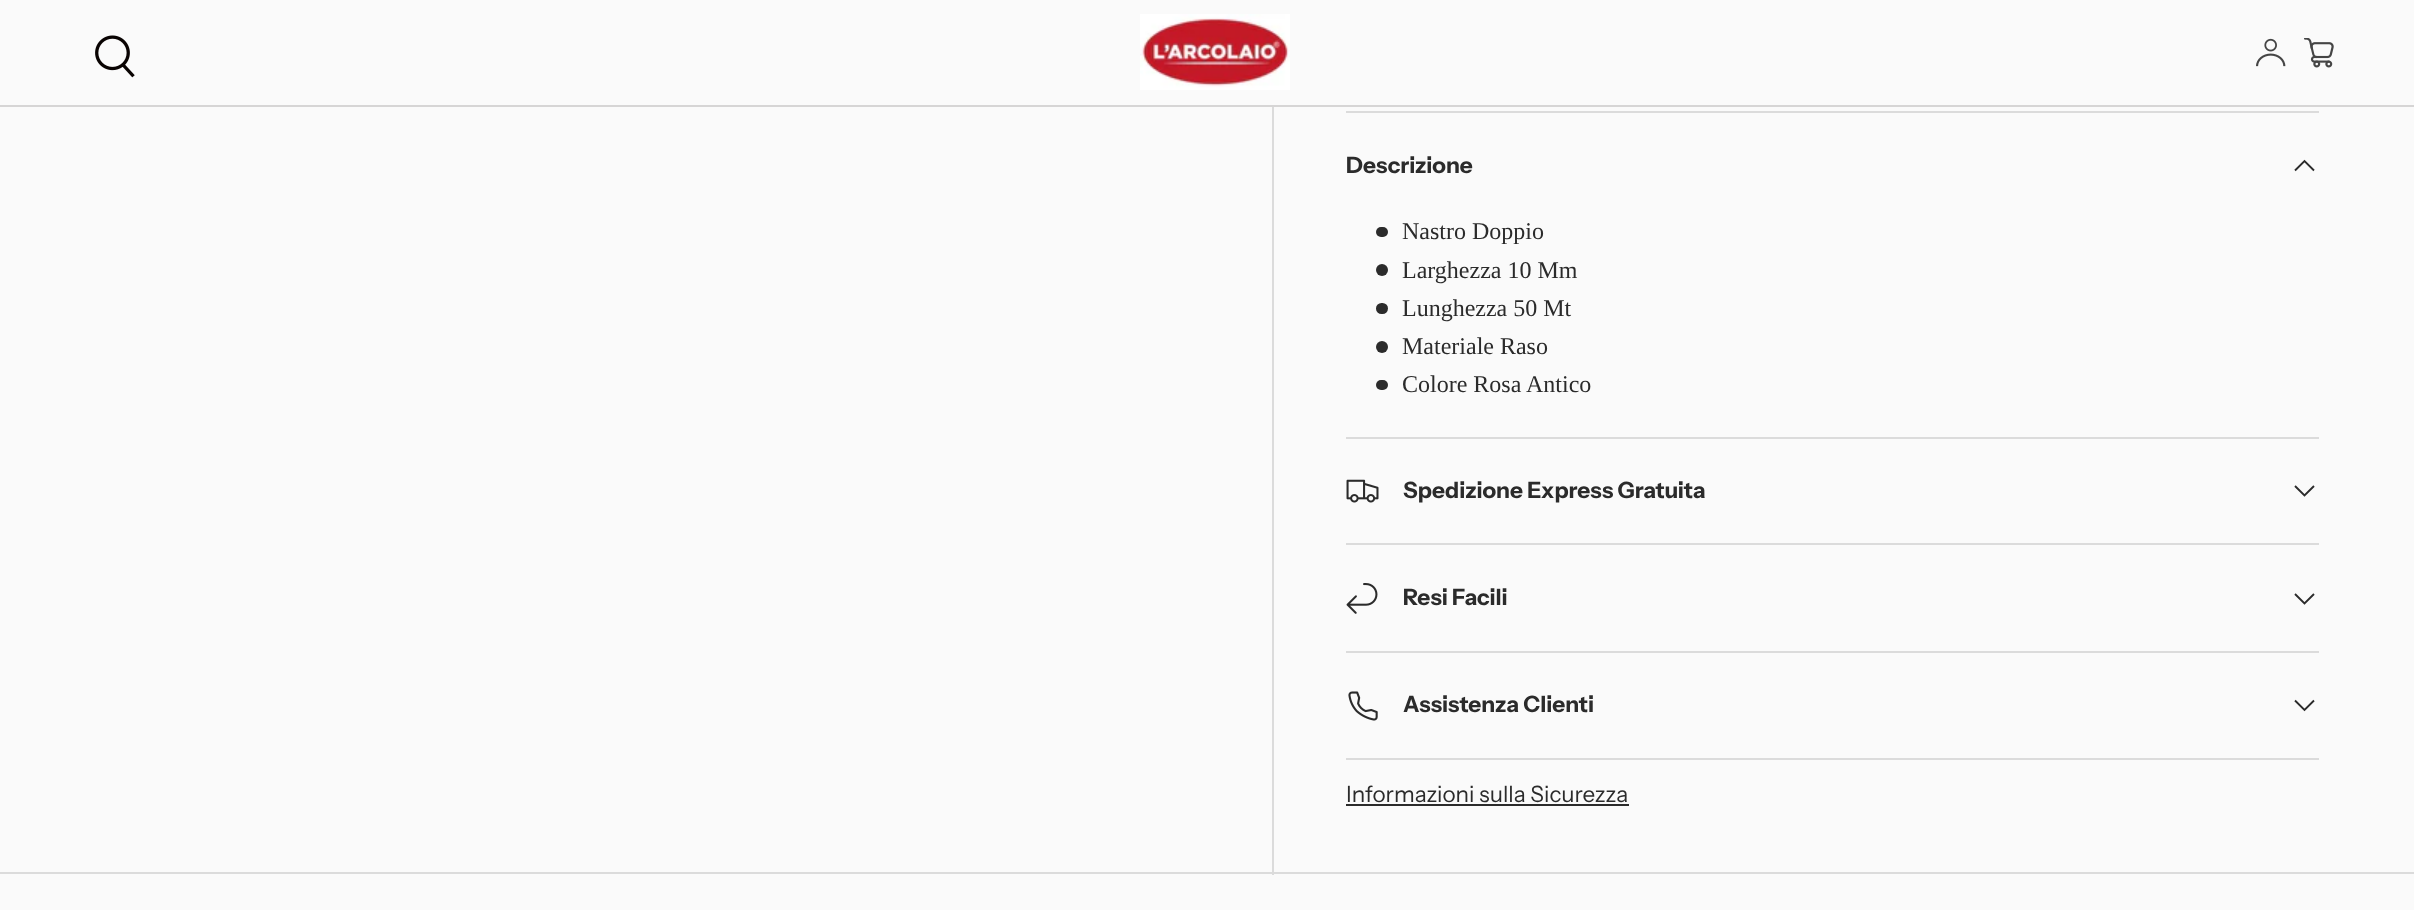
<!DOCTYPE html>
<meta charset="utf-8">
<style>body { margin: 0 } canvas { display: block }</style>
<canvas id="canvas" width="2414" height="910"></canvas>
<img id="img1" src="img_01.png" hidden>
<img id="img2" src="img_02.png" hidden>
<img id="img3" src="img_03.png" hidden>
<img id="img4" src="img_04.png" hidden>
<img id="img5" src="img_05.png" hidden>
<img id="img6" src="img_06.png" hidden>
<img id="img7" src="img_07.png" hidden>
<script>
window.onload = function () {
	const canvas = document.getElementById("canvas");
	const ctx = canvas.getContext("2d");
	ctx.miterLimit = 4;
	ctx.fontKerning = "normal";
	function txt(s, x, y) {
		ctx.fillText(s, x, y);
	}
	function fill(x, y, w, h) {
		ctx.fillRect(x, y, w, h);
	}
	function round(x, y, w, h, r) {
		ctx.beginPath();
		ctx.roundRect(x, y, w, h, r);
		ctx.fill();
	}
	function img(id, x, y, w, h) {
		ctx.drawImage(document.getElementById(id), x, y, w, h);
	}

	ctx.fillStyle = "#FAFAFA";
	fill(0, 0, 2414, 910);
	ctx.fillStyle = "#D6D5D5";
	fill(0, 105, 2414, 2);
	img("img1", 95, 35, 40, 43);
	img("img2", 1140, 14, 150, 76);
	img("img3", 2256, 38, 30, 29);
	img("img4", 2304, 38, 30, 30);
	ctx.fillStyle = "#DBDBDB";
	fill(0, 872, 2414, 2);
	fill(1272, 107, 2, 768);
	fill(1346, 111, 973, 2);
	fill(1346, 437, 973, 2);
	ctx.beginPath();
	ctx.moveTo(2314, 170.5);
	ctx.lineTo(2304.5, 161);
	ctx.lineTo(2295, 170.5);
	ctx.strokeStyle = "#2B2B2B";
	ctx.lineWidth = 1.9;
	ctx.stroke();
	ctx.fillStyle = "#2B2B2B";
	round(1376, 227, 12, 10, 5);
	ctx.beginPath();
	ctx.arc(1382, 270, 6, 0, Math.PI * 2);
	ctx.fill();
	round(1376, 303, 12, 11, 5.5);
	ctx.beginPath();
	ctx.arc(1382, 347, 6, 0, Math.PI * 2);
	ctx.fill();
	round(1376, 380, 12, 10, 5);
	ctx.fillStyle = "#DBDBDB";
	fill(1346, 543, 973, 2);
	img("img5", 1346, 479, 33, 24);
	ctx.beginPath();
	ctx.moveTo(2314, 486);
	ctx.lineTo(2304.5, 495.5);
	ctx.lineTo(2295, 486);
	ctx.stroke();
	fill(1346, 651, 973, 2);
	img("img6", 1346, 583, 32, 31);
	ctx.beginPath();
	ctx.moveTo(2314, 594);
	ctx.lineTo(2304.5, 603.5);
	ctx.lineTo(2295, 594);
	ctx.stroke();
	fill(1346, 758, 973, 2);
	img("img7", 1348, 691, 30, 30);
	ctx.beginPath();
	ctx.moveTo(2314, 700.5);
	ctx.lineTo(2304.5, 710);
	ctx.lineTo(2295, 700.5);
	ctx.stroke();
	ctx.fillStyle = "#2B2B2B";
	fill(1346, 804, 283, 2);
	ctx.font = "bold 22.5px Instrument Sans";
	txt("Descrizione", 1346, 173);
	ctx.font = "24px Liberation Serif";
	txt("Nastro Doppio", 1402, 239);
	txt("Larghezza 10 Mm", 1402, 278);
	txt("Lunghezza 50 Mt", 1402, 316);
	txt("Materiale Raso", 1402, 354);
	txt("Colore Rosa Antico", 1402, 392);
	ctx.font = "bold 22.5px Instrument Sans";
	txt("Spedizione Express Gratuita", 1403, 498);
	txt("Resi Facili", 1403, 605);
	txt("Assistenza Clienti", 1403, 712);
	ctx.font = "22.5px Instrument Sans";
	txt("Informazioni sulla Sicurezza", 1346, 802);
};
</script>
